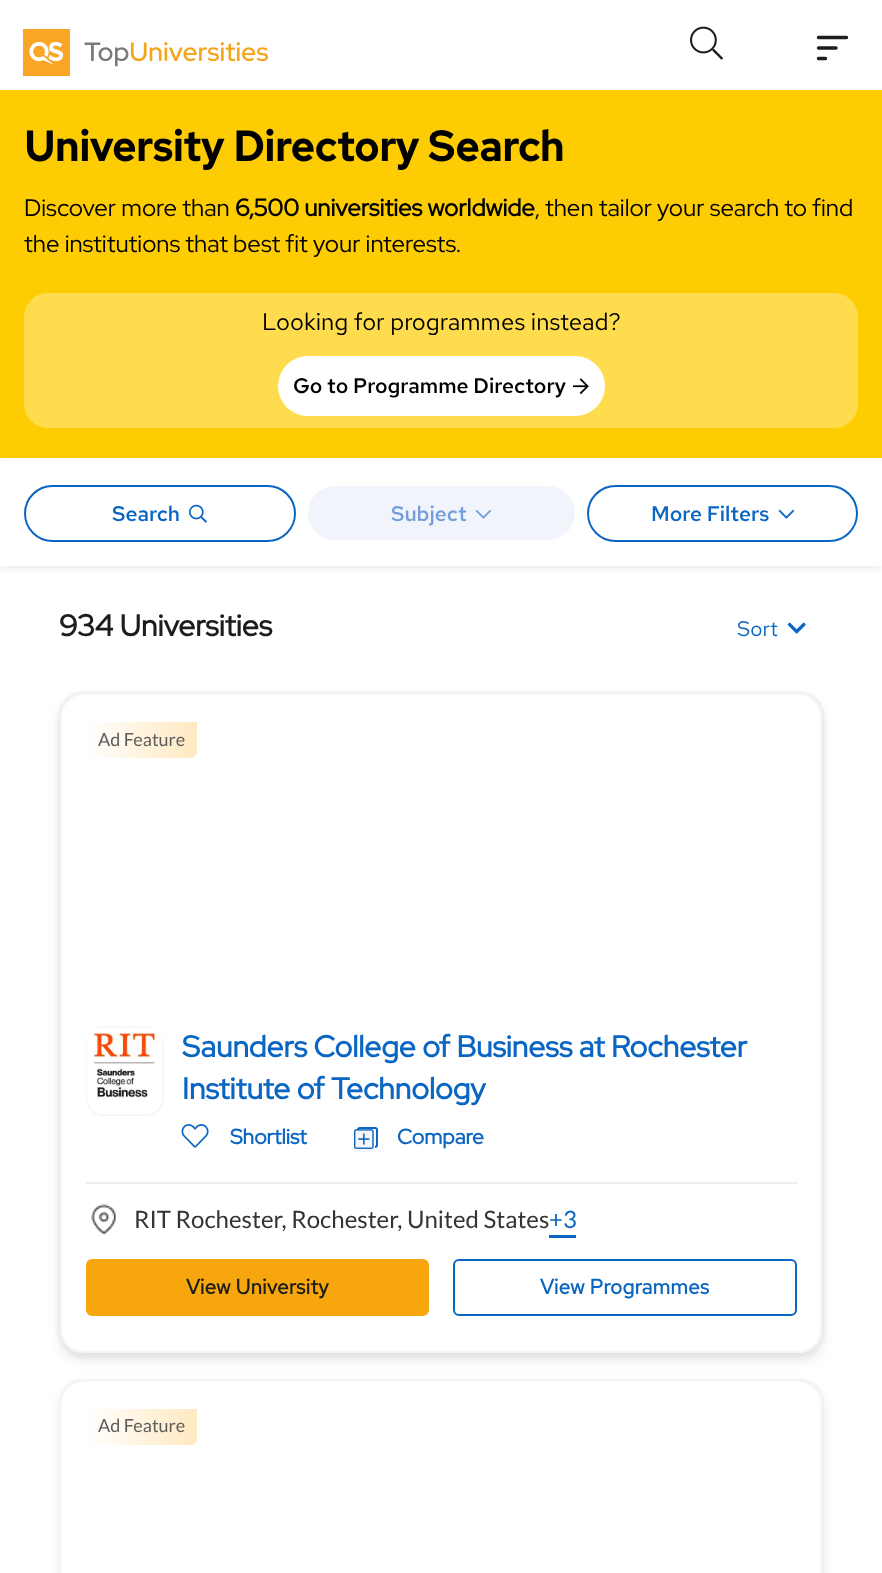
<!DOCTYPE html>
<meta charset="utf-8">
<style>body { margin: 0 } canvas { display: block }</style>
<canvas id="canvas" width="882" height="1573"></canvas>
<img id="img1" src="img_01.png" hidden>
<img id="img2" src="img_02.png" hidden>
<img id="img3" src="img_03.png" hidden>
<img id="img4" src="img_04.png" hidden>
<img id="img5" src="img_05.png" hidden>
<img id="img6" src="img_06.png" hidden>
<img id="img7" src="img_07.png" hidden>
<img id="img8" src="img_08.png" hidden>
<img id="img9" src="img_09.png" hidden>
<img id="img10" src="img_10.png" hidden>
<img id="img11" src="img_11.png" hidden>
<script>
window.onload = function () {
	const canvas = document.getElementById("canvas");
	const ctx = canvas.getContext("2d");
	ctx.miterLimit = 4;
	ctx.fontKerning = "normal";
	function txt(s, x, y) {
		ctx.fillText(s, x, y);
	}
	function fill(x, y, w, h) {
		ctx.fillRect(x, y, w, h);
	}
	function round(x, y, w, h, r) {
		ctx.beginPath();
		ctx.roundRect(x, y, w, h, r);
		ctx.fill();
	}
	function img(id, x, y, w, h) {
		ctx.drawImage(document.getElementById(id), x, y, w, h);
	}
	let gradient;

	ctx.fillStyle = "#FFFFFF";
	fill(0, 0, 882, 1573);
	img("img1", 23, 29, 245, 47);
	img("img2", 690, 26, 33, 34);
	ctx.beginPath();
	ctx.moveTo(818.5, 48);
	ctx.lineTo(836, 48);
	ctx.moveTo(818.5, 37.5);
	ctx.lineTo(846.5, 37.5);
	ctx.moveTo(818.5, 58.5);
	ctx.lineTo(825.5, 58.5);
	ctx.strokeStyle = "#1D1D1B";
	ctx.lineWidth = 3.5;
	ctx.lineCap = "round";
	ctx.lineJoin = "round";
	ctx.stroke();
	ctx.fillStyle = "#FECC02";
	fill(0, 90, 882, 368);
	ctx.fillStyle = "#FFDC4D";
	round(24, 293, 834, 135, 24);
	ctx.fillStyle = "#FFFFFF";
	round(278, 356, 327, 60, 30);
	img("img3", 573, 378, 16, 16);
	ctx.fillStyle = "rgba(29, 29, 27, 0.08)";
	ctx.filter = "blur(3px)";
	ctx.beginPath();
	ctx.rect(0, 461, 882, 108);
	ctx.fill();
	ctx.filter = "none";
	ctx.fillStyle = "#FFFFFF";
	fill(0, 458, 882, 108);
	ctx.beginPath();
	ctx.roundRect(25, 486, 270, 55, 27.5);
	ctx.strokeStyle = "#0A66C2";
	ctx.lineWidth = 2;
	ctx.lineJoin = "miter";
	ctx.stroke();
	img("img4", 189, 504, 18, 19);
	ctx.fillStyle = "#F1F5FB";
	round(308, 486, 267, 54, 27);
	img("img5", 475, 509, 17, 10);
	ctx.beginPath();
	ctx.roundRect(588, 486, 269, 55, 27.5);
	ctx.stroke();
	img("img6", 778, 509, 17, 10);
	img("img7", 787, 622, 19, 12);
	ctx.fillStyle = "rgba(0, 0, 0, 0.08)";
	ctx.filter = "blur(6px)";
	ctx.beginPath();
	ctx.roundRect(59, 698, 765, 663, 24);
	ctx.fill();
	ctx.filter = "none";
	ctx.fillStyle = "#FFFFFF";
	round(59, 692, 765, 663, 24);
	ctx.beginPath();
	ctx.roundRect(60, 693, 763, 661, 23);
	ctx.strokeStyle = "rgba(151, 151, 151, 0.12)";
	ctx.stroke();
	ctx.save();
	ctx.beginPath();
	ctx.moveTo(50, 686);
	ctx.lineTo(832, 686);
	ctx.lineTo(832, 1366);
	ctx.lineTo(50, 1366);
	ctx.closePath();
	ctx.moveTo(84, 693);
	ctx.lineTo(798, 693);
	ctx.bezierCurveTo(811.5, 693, 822, 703.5, 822, 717);
	ctx.lineTo(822, 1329);
	ctx.bezierCurveTo(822, 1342.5, 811.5, 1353, 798, 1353);
	ctx.lineTo(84, 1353);
	ctx.bezierCurveTo(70.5, 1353, 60, 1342.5, 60, 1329);
	ctx.lineTo(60, 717);
	ctx.bezierCurveTo(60, 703.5, 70.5, 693, 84, 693);
	ctx.closePath();
	ctx.clip("evenodd");
	ctx.fillStyle = "rgba(29, 29, 27, 0.08)";
	ctx.filter = "blur(3px)";
	ctx.beginPath();
	ctx.roundRect(60, 696, 762, 660, 24);
	ctx.fill();
	ctx.filter = "none";
	ctx.restore();
	ctx.beginPath();
	ctx.roundRect(61, 694, 760, 658, 23);
	ctx.strokeStyle = "#F6F6F6";
	ctx.stroke();
	gradient = ctx.createLinearGradient(197, 740, 86, 740);
	gradient.addColorStop(0, "#FFE9C0");
	gradient.addColorStop(1, "#FFFFFF");
	ctx.fillStyle = gradient;
	ctx.beginPath();
	ctx.roundRect(86, 722, 111, 36, [6, 0, 6, 0]);
	ctx.fill();
	ctx.fillStyle = "#EDEDED";
	fill(86, 1182, 711, 2);
	ctx.beginPath();
	ctx.roundRect(87, 1027, 76, 88, 16);
	ctx.stroke();
	img("img8", 87, 1027, 75, 76);
	img("img9", 181, 1124, 28, 24);
	ctx.beginPath();
	ctx.roundRect(358, 1128, 19, 19, 2);
	ctx.strokeStyle = "#0A66C2";
	ctx.stroke();
	ctx.fillStyle = "#F6F5F8";
	fill(354, 1130, 21, 22);
	img("img10", 354, 1129, 20, 20);
	img("img11", 91, 1204, 25, 31);
	ctx.fillStyle = "#0A66C2";
	fill(549, 1235, 27, 3);
	ctx.fillStyle = "#F7A70D";
	ctx.beginPath();
	ctx.roundRect(87, 1260, 341, 55, 5);
	ctx.fill();
	ctx.strokeStyle = "#F7A70D";
	ctx.stroke();
	ctx.beginPath();
	ctx.roundRect(454, 1260, 342, 55, 5);
	ctx.strokeStyle = "#0A66C2";
	ctx.stroke();
	ctx.fillStyle = "rgba(0, 0, 0, 0.08)";
	ctx.filter = "blur(6px)";
	ctx.beginPath();
	ctx.roundRect(59, 1385, 765, 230, 24);
	ctx.fill();
	ctx.filter = "none";
	ctx.fillStyle = "#FFFFFF";
	round(59, 1379, 765, 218, 24);
	ctx.beginPath();
	ctx.roundRect(60, 1380, 763, 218, 23);
	ctx.strokeStyle = "rgba(151, 151, 151, 0.12)";
	ctx.stroke();
	ctx.beginPath();
	ctx.roundRect(61, 1381, 760, 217, 23);
	ctx.strokeStyle = "#F6F6F6";
	ctx.stroke();
	gradient = ctx.createLinearGradient(197, 1427, 86, 1427);
	gradient.addColorStop(0, "#FFE9C0");
	gradient.addColorStop(1, "#FFFFFF");
	ctx.fillStyle = gradient;
	ctx.beginPath();
	ctx.roundRect(86, 1409, 111, 36, [6, 0, 6, 0]);
	ctx.fill();
	ctx.font = "bold 42px Red Hat Text";
	ctx.fillStyle = "#000000";
	txt("University Directory Search", 24, 161);
	ctx.font = "24px Red Hat Display";
	txt("Discover more than", 24, 216);
	ctx.font = "bold 24px Red Hat Display";
	txt("6,500 universities worldwide", 235, 216);
	ctx.font = "24px Red Hat Display";
	txt(", then tailor your search to find", 535, 216);
	txt("the institutions that best fit your interests.", 24, 252);
	ctx.font = "24px Red Hat Text";
	txt("Looking for programmes instead?", 262, 330);
	ctx.font = "500 21px Red Hat Text";
	txt("Go to Programme Directory", 293, 393);
	ctx.fillStyle = "#0A66C2";
	txt("Search", 112, 521);
	ctx.fillStyle = "#739ED9";
	txt("Subject", 391, 521);
	ctx.fillStyle = "#0A66C2";
	txt("More Filters", 651, 521);
	ctx.font = "bold 30px Red Hat Display";
	ctx.fillStyle = "#1D1D1B";
	txt("934 Universities", 59, 636);
	ctx.font = "21px Red Hat Text";
	ctx.fillStyle = "#0A66C2";
	txt("Sort", 737, 636);
	ctx.font = "18px Lato";
	ctx.fillStyle = "#5D5D5B";
	txt("Ad Feature", 98, 746);
	ctx.font = "bold 30px Red Hat Display";
	ctx.fillStyle = "#0A66C2";
	txt("Saunders College of Business at Rochester", 182, 1057);
	txt("Institute of Technology", 182, 1099);
	ctx.font = "bold 21px Red Hat Display";
	txt("Shortlist", 230, 1144);
	txt("Compare", 397, 1144);
	ctx.font = "24px Lato";
	ctx.fillStyle = "#343432";
	txt("RIT Rochester, Rochester, United States", 134, 1228);
	ctx.fillStyle = "#0A66C2";
	txt("+3", 549, 1228);
	ctx.font = "bold 21px 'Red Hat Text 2'";
	ctx.fillStyle = "#1D1D1B";
	txt("View University", 186, 1294);
	ctx.fillStyle = "#0A66C2";
	txt("View Programmes", 540, 1294);
	ctx.font = "18px Lato";
	ctx.fillStyle = "#5D5D5B";
	txt("Ad Feature", 98, 1432);
};
</script>
